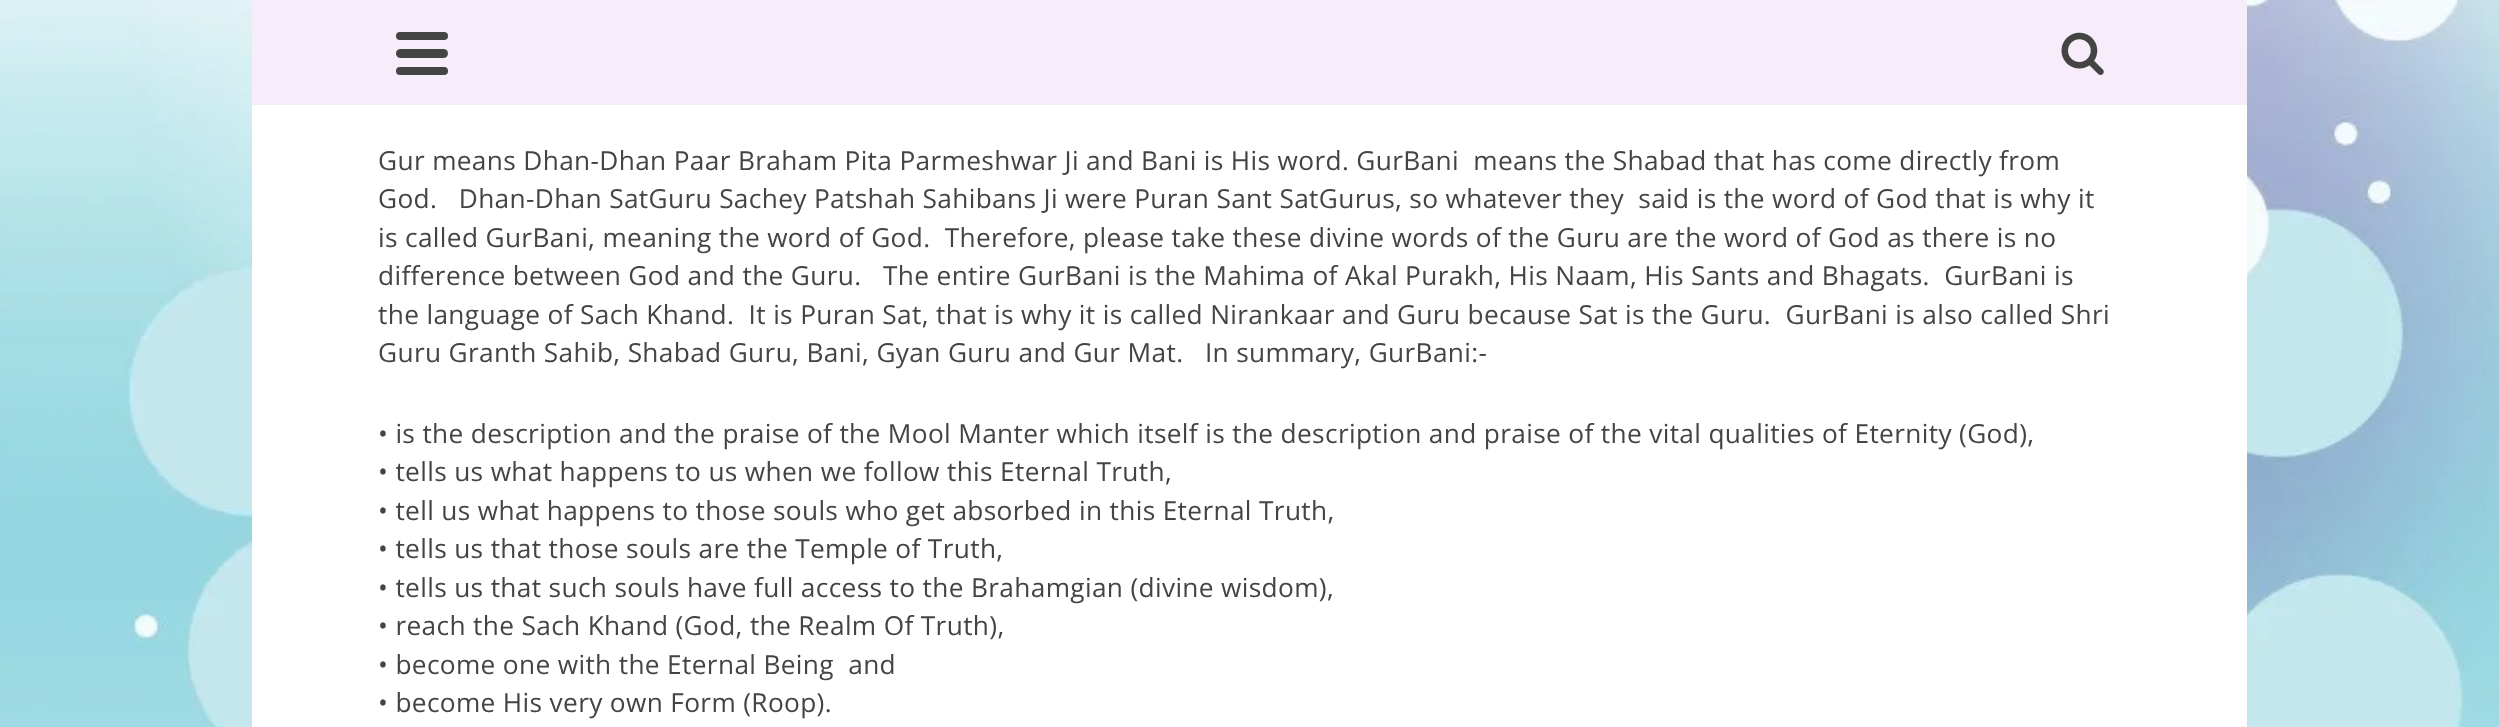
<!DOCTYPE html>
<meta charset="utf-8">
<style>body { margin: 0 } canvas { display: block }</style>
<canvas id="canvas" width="2499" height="727"></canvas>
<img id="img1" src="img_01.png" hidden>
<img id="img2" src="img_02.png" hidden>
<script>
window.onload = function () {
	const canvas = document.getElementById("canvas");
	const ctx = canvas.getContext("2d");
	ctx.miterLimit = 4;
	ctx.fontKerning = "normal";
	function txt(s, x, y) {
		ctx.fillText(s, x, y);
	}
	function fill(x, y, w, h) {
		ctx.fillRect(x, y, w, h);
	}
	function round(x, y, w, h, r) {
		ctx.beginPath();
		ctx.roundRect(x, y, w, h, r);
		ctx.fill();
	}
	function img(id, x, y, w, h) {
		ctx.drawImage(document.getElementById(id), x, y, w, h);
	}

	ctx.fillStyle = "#FFFFFF";
	fill(0, 0, 2499, 727);
	img("img1", 0, 0, 2499, 727);
	ctx.fillStyle = "#F7ECF9";
	fill(252, 0, 1995, 105);
	ctx.fillStyle = "#444444";
	round(396, 32, 52, 8, 4);
	round(396, 49, 52, 9, 4.5);
	round(396, 67, 52, 8, 4);
	img("img2", 2061, 32, 43, 43);
	ctx.fillStyle = "#FFFFFF";
	fill(252, 105, 1995, 622);
	ctx.letterSpacing = "0.35px";
	ctx.font = "26.25px Open Sans";
	ctx.fillStyle = "#444444";
	txt("Gur means Dhan-Dhan Paar Braham Pita Parmeshwar Ji and Bani is His word. GurBani  means the Shabad that has come directly from", 378, 170);
	txt("God.   Dhan-Dhan SatGuru Sachey Patshah Sahibans Ji were Puran Sant SatGurus, so whatever they  said is the word of God that is why it", 378, 208);
	txt("is called GurBani, meaning the word of God.  Therefore, please take these divine words of the Guru are the word of God as there is no", 378, 247);
	txt("difference between God and the Guru.   The entire GurBani is the Mahima of Akal Purakh, His Naam, His Sants and Bhagats.  GurBani is", 378, 285);
	txt("the language of Sach Khand.  It is Puran Sat, that is why it is called Nirankaar and Guru because Sat is the Guru.  GurBani is also called Shri", 378, 324);
	txt("Guru Granth Sahib, Shabad Guru, Bani, Gyan Guru and Gur Mat.   In summary, GurBani:-", 378, 362);
	txt("• is the description and the praise of the Mool Manter which itself is the description and praise of the vital qualities of Eternity (God),", 378, 443);
	txt("• tells us what happens to us when we follow this Eternal Truth,", 378, 481);
	txt("• tell us what happens to those souls who get absorbed in this Eternal Truth,", 378, 520);
	txt("• tells us that those souls are the Temple of Truth,", 378, 558);
	txt("• tells us that such souls have full access to the Brahamgian (divine wisdom),", 378, 597);
	txt("• reach the Sach Khand (God, the Realm Of Truth),", 378, 635);
	txt("• become one with the Eternal Being  and", 378, 674);
	txt("• become His very own Form (Roop).", 378, 712);
};
</script>
